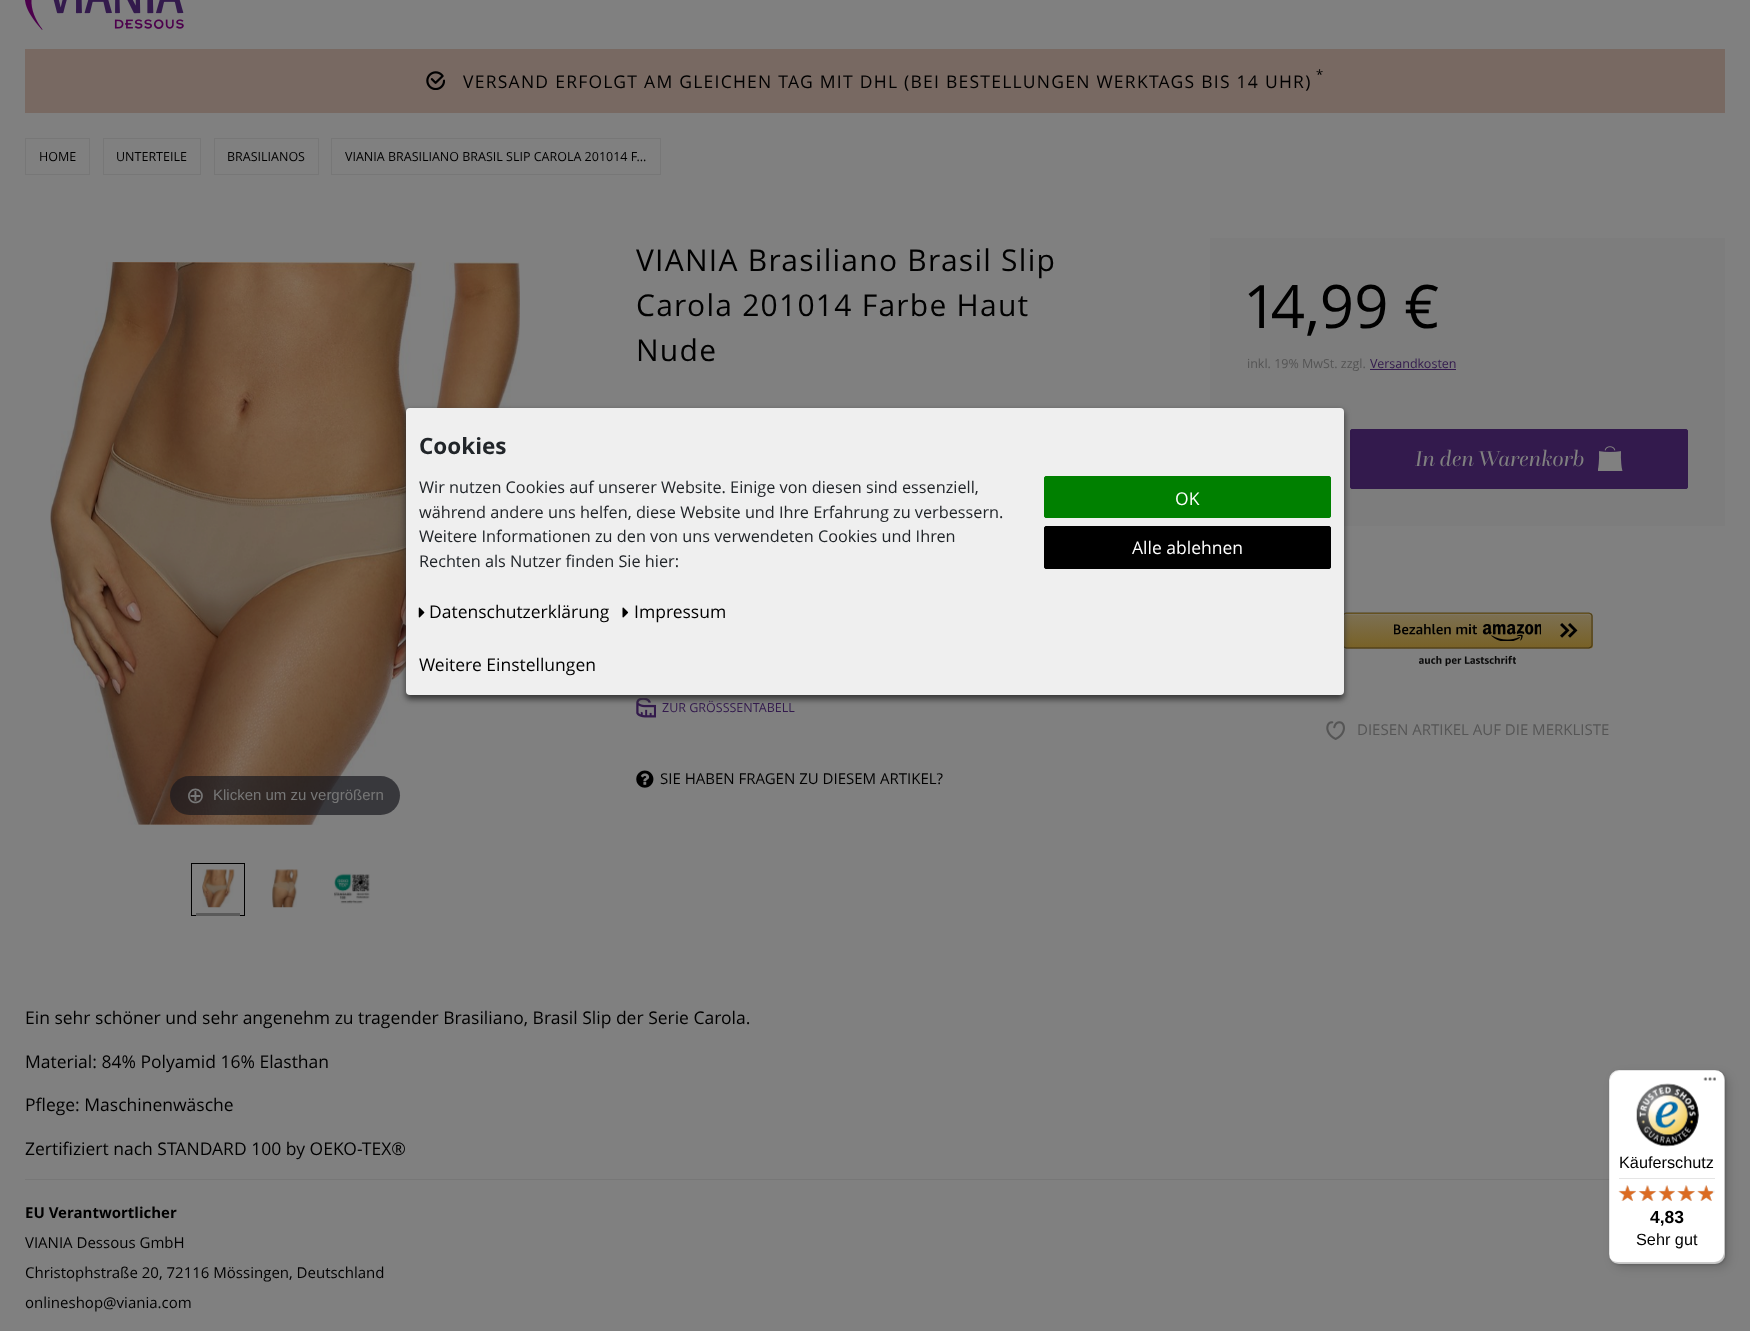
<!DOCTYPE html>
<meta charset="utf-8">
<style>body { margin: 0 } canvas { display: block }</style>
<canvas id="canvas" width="1750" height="1331"></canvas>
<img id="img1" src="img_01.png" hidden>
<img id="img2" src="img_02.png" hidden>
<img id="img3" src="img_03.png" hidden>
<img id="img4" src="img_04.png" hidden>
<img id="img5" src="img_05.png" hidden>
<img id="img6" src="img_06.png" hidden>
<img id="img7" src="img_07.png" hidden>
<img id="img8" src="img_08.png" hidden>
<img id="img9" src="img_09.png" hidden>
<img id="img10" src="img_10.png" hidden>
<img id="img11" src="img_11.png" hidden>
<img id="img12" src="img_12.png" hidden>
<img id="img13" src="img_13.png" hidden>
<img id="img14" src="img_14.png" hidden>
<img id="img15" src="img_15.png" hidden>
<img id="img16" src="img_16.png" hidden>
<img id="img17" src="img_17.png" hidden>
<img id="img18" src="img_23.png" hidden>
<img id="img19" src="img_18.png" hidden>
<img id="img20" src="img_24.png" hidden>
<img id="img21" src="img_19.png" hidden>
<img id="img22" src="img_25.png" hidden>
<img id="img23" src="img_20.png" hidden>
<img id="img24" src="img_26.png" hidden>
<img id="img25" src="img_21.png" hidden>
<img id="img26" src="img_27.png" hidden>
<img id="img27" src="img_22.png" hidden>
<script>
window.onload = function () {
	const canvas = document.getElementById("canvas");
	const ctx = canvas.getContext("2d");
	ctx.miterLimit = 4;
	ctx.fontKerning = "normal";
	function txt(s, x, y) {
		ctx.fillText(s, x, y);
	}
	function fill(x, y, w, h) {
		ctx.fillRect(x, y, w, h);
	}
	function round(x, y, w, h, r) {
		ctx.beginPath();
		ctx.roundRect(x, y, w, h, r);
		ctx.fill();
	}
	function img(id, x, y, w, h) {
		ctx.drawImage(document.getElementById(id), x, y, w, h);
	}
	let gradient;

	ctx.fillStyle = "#808080";
	fill(0, 0, 1750, 1331);
	img("img1", 25, 0, 159, 30);
	ctx.fillStyle = "#786962";
	fill(25, 49, 1700, 64);
	img("img2", 426, 71, 19, 19);
	ctx.strokeStyle = "#777777";
	ctx.strokeRect(25.5, 138.5, 64, 36);
	ctx.strokeRect(103.5, 138.5, 97, 36);
	ctx.strokeRect(214.5, 138.5, 104, 36);
	ctx.strokeRect(331.5, 138.5, 329, 36);
	img("img3", 636, 698, 20, 20);
	img("img4", 636, 770, 18, 18);
	ctx.fillStyle = "#7D7D7D";
	fill(1210, 238, 515, 288);
	ctx.fillStyle = "#331A4D";
	fill(1370, 369, 86, 1);
	ctx.beginPath();
	ctx.roundRect(1350.5, 429.5, 337, 59, 1.5);
	ctx.fill();
	ctx.strokeStyle = "#331A4D";
	ctx.stroke();
	img("img5", 1598, 446, 25, 25);
	ctx.save();
	ctx.beginPath();
	ctx.roundRect(1343, 613, 250, 36, 4);
	ctx.clip();
	gradient = ctx.createLinearGradient(1468, 580, 1468, 614);
	gradient.addColorStop(0, "#7C7053");
	gradient.addColorStop(1, "#786126");
	ctx.fillStyle = gradient;
	fill(1343, 613, 250, 1);
	gradient = ctx.createLinearGradient(1468, 614, 1468, 648);
	gradient.addColorStop(0, "#7C7053");
	gradient.addColorStop(1, "#786126");
	ctx.fillStyle = gradient;
	fill(1344, 614, 249, 34);
	gradient = ctx.createLinearGradient(1468, 648, 1468, 681);
	gradient.addColorStop(0, "#7C7053");
	gradient.addColorStop(1, "#786126");
	ctx.fillStyle = gradient;
	fill(1343, 648, 250, 1);
	ctx.restore();
	ctx.fillStyle = "rgba(128, 128, 128, 0.4)";
	ctx.beginPath();
	ctx.moveTo(1346, 615);
	ctx.lineTo(1589, 615);
	ctx.bezierCurveTo(1590, 615, 1591, 616, 1591, 618);
	ctx.bezierCurveTo(1591, 616, 1591, 614, 1588, 614);
	ctx.lineTo(1346, 614);
	ctx.bezierCurveTo(1344, 614, 1344, 616, 1344, 618);
	ctx.bezierCurveTo(1344, 616, 1345, 615, 1346, 615);
	ctx.closePath();
	ctx.fill();
	ctx.beginPath();
	ctx.moveTo(1344, 614);
	ctx.lineTo(1346, 613);
	ctx.lineTo(1589, 613);
	ctx.lineTo(1591, 614);
	ctx.strokeStyle = "#54441A";
	ctx.lineWidth = 1.2;
	ctx.stroke();
	ctx.beginPath();
	ctx.moveTo(1591, 614);
	ctx.bezierCurveTo(1591.5, 614.5, 1592, 615.5, 1592, 616);
	ctx.lineTo(1592, 645);
	ctx.bezierCurveTo(1592, 646, 1591.5, 646.5, 1591, 647);
	ctx.strokeStyle = "#4E3F19";
	ctx.stroke();
	ctx.beginPath();
	ctx.moveTo(1591, 647);
	ctx.lineTo(1589, 648);
	ctx.lineTo(1346, 648);
	ctx.lineTo(1344, 647);
	ctx.strokeStyle = "#423515";
	ctx.stroke();
	ctx.beginPath();
	ctx.moveTo(1344, 647);
	ctx.bezierCurveTo(1343.5, 646.5, 1343, 646, 1343, 645);
	ctx.lineTo(1343, 616);
	ctx.bezierCurveTo(1343, 615.5, 1343.5, 614.5, 1344, 614);
	ctx.strokeStyle = "#4E3F19";
	ctx.stroke();
	img("img6", 1394, 624, 147, 17);
	img("img7", 1560, 623, 18, 15);
	img("img8", 1419, 655, 97, 11);
	img("img9", 1326, 721, 19, 19);
	img("img10", 50, 262, 470, 563);
	ctx.fillStyle = "rgba(25, 26, 31, 0.7)";
	round(170, 776, 230, 39, 19.5);
	ctx.strokeStyle = "#000000";
	ctx.lineWidth = 1;
	ctx.strokeRect(191.5, 863.5, 53, 52);
	ctx.fillStyle = "#5A5A5A";
	fill(196, 913, 44, 3);
	img("img11", 202, 869, 33, 39);
	img("img12", 272, 869, 27, 39);
	img("img13", 334, 873, 36, 31);
	ctx.fillStyle = "#777777";
	fill(25, 1179, 1584, 1);
	ctx.fillStyle = "#333333";
	ctx.filter = "blur(3px)";
	ctx.beginPath();
	ctx.roundRect(406, 411, 938, 288, 4);
	ctx.fill();
	ctx.filter = "none";
	ctx.fillStyle = "#EFEFEF";
	round(406, 408, 938, 287, 4);
	img("img14", 418, 607, 7, 11);
	img("img15", 622, 607, 7, 11);
	ctx.fillStyle = "#008000";
	ctx.beginPath();
	ctx.roundRect(1044.5, 476.5, 286, 41, 1.5);
	ctx.fill();
	ctx.strokeStyle = "#008000";
	ctx.stroke();
	ctx.fillStyle = "#000000";
	ctx.beginPath();
	ctx.roundRect(1044.5, 526.5, 286, 42, 1.5);
	ctx.fill();
	ctx.strokeStyle = "#000000";
	ctx.stroke();
	ctx.fillStyle = "rgba(0, 0, 0, 0.15)";
	ctx.filter = "blur(5px)";
	ctx.beginPath();
	ctx.roundRect(1613, 1074, 116, 194, 10);
	ctx.fill();
	ctx.filter = "none";
	ctx.filter = "blur(1px)";
	ctx.beginPath();
	ctx.roundRect(1610, 1071, 116, 194, 10);
	ctx.fill();
	ctx.filter = "none";
	ctx.fillStyle = "#FFFFFF";
	round(1609, 1070, 116, 194, 10);
	ctx.fillStyle = "rgba(0, 0, 0, 0.1)";
	ctx.beginPath();
	ctx.moveTo(1620, 1071);
	ctx.lineTo(1716, 1071);
	ctx.bezierCurveTo(1719, 1071, 1721, 1072, 1723, 1073);
	ctx.bezierCurveTo(1721, 1071, 1718, 1070, 1715, 1070);
	ctx.lineTo(1619, 1070);
	ctx.bezierCurveTo(1613, 1070, 1609, 1074, 1609, 1080);
	ctx.lineTo(1609, 1254);
	ctx.bezierCurveTo(1609, 1256, 1610, 1259, 1611, 1260);
	ctx.bezierCurveTo(1610, 1259, 1610, 1257, 1610, 1255);
	ctx.lineTo(1610, 1081);
	ctx.bezierCurveTo(1610, 1076, 1614, 1071, 1620, 1071);
	ctx.closePath();
	ctx.fill();
	ctx.fillStyle = "rgba(0, 0, 0, 0.2)";
	ctx.beginPath();
	ctx.moveTo(1610, 1258);
	ctx.bezierCurveTo(1612, 1262, 1615, 1264, 1619, 1264);
	ctx.lineTo(1715, 1264);
	ctx.bezierCurveTo(1721, 1264, 1725, 1260, 1725, 1254);
	ctx.lineTo(1725, 1080);
	ctx.bezierCurveTo(1725, 1077, 1724, 1074, 1722, 1072);
	ctx.bezierCurveTo(1723, 1074, 1724, 1076, 1724, 1079);
	ctx.lineTo(1724, 1252);
	ctx.bezierCurveTo(1724, 1258, 1719, 1262, 1714, 1262);
	ctx.lineTo(1618, 1262);
	ctx.bezierCurveTo(1615, 1262, 1612, 1261, 1610, 1258);
	ctx.closePath();
	ctx.fill();
	ctx.fillStyle = "rgba(50, 50, 50, 0.2)";
	ctx.beginPath();
	ctx.moveTo(1613, 1262);
	ctx.bezierCurveTo(1614, 1263, 1617, 1264, 1619, 1264);
	ctx.lineTo(1715, 1264);
	ctx.bezierCurveTo(1721, 1264, 1725, 1260, 1725, 1254);
	ctx.lineTo(1725, 1080);
	ctx.bezierCurveTo(1725, 1077, 1724, 1074, 1721, 1072);
	ctx.bezierCurveTo(1723, 1074, 1724, 1077, 1724, 1079);
	ctx.lineTo(1724, 1253);
	ctx.bezierCurveTo(1724, 1259, 1720, 1263, 1714, 1263);
	ctx.lineTo(1618, 1263);
	ctx.bezierCurveTo(1616, 1263, 1614, 1263, 1613, 1262);
	ctx.closePath();
	ctx.fill();
	ctx.fillStyle = "rgba(255, 255, 255, 0.3)";
	ctx.beginPath();
	ctx.moveTo(1611, 1260);
	ctx.bezierCurveTo(1613, 1263, 1616, 1264, 1619, 1264);
	ctx.lineTo(1715, 1264);
	ctx.bezierCurveTo(1721, 1264, 1725, 1260, 1725, 1254);
	ctx.lineTo(1725, 1080);
	ctx.bezierCurveTo(1725, 1077, 1724, 1074, 1721, 1072);
	ctx.bezierCurveTo(1723, 1074, 1724, 1077, 1724, 1079);
	ctx.lineTo(1724, 1253);
	ctx.bezierCurveTo(1724, 1259, 1720, 1263, 1714, 1263);
	ctx.lineTo(1618, 1263);
	ctx.bezierCurveTo(1616, 1263, 1613, 1262, 1611, 1260);
	ctx.closePath();
	ctx.fill();
	img("img16", 1703, 1077, 13, 4);
	img("img17", 1636, 1083, 63, 64);
	ctx.fillStyle = "#E5E5E5";
	fill(1619, 1178, 96, 1);
	img("img18", 1619, 1185, 17, 16);
	img("img19", 1618, 1185, 18, 16);
	img("img20", 1639, 1185, 17, 16);
	img("img21", 1638, 1185, 19, 16);
	img("img22", 1659, 1185, 16, 16);
	img("img23", 1658, 1185, 17, 16);
	img("img24", 1677, 1185, 18, 16);
	img("img25", 1677, 1185, 18, 16);
	img("img26", 1697, 1185, 18, 16);
	img("img27", 1697, 1185, 16, 16);
	ctx.letterSpacing = "1.25px";
	ctx.font = "17.5px Open Sans";
	ctx.fillStyle = "#000000";
	txt("VERSAND ERFOLGT AM GLEICHEN TAG MIT DHL (BEI BESTELLUNGEN WERKTAGS BIS 14 UHR)", 463, 88);
	ctx.font = "13px Open Sans";
	txt("*", 1316, 79);
	ctx.letterSpacing = "0px";
	ctx.font = "12.5px Open Sans";
	txt("HOME", 39, 161);
	txt("UNTERTEILE", 116, 161);
	txt("BRASILIANOS", 227, 161);
	txt("VIANIA BRASILIANO BRASIL SLIP CAROLA 201014 F...", 345, 161);
	ctx.letterSpacing = "1.25px";
	ctx.font = "30px Open Sans";
	txt("VIANIA Brasiliano Brasil Slip", 636, 271);
	txt("Carola 201014 Farbe Haut", 636, 316);
	txt("Nude", 636, 361);
	ctx.letterSpacing = "0px";
	ctx.font = "12.5px Open Sans";
	ctx.fillStyle = "#331A4D";
	txt("ZUR GRÖSSSENTABELL", 662, 712);
	ctx.font = "15px Open Sans";
	ctx.fillStyle = "#000000";
	txt("SIE HABEN FRAGEN ZU DIESEM ARTIKEL?", 660, 784);
	ctx.font = "60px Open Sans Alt";
	txt("14,99 €", 1247, 328);
	ctx.font = "12.5px Open Sans";
	ctx.fillStyle = "#555555";
	txt("inkl. 19% MwSt. zzgl.", 1247, 368);
	ctx.fillStyle = "#331A4D";
	txt("Versandkosten", 1370, 368);
	ctx.font = "italic 22.5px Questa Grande";
	ctx.fillStyle = "#808080";
	txt("In den Warenkorb", 1415, 466);
	ctx.font = "15px Open Sans";
	ctx.fillStyle = "#555555";
	txt("DIESEN ARTIKEL AUF DIE MERKLISTE", 1357, 735);
	ctx.font = "22.5px DejaVu Sans";
	ctx.fillStyle = "#777777";
	txt("⊕", 186, 803);
	ctx.font = "15px Liberation Sans";
	txt("Klicken um zu vergrößern", 213, 800);
	ctx.font = "17.5px Open Sans";
	ctx.fillStyle = "#000000";
	txt("Ein sehr schöner und sehr angenehm zu tragender Brasiliano, Brasil Slip der Serie Carola.", 25, 1024);
	txt("Material: 84% Polyamid 16% Elasthan", 25, 1068);
	txt("Pflege: Maschinenwäsche", 25, 1111);
	txt("Zertifiziert nach STANDARD 100 by OEKO-TEX®", 25, 1155);
	ctx.font = "bold 15px Open Sans";
	txt("EU Verantwortlicher", 25, 1218);
	ctx.font = "15px Open Sans";
	txt("VIANIA Dessous GmbH", 25, 1248);
	txt("Christophstraße 20, 72116 Mössingen, Deutschland", 25, 1278);
	txt("onlineshop@viania.com", 25, 1308);
	ctx.font = "bold 22.5px Open Sans";
	ctx.fillStyle = "#212529";
	txt("Cookies", 419, 454);
	ctx.font = "16.25px Open Sans";
	txt("Wir nutzen Cookies auf unserer Website. Einige von diesen sind essenziell,", 419, 493);
	txt("während andere uns helfen, diese Website und Ihre Erfahrung zu verbessern.", 419, 518);
	txt("Weitere Informationen zu den von uns verwendeten Cookies und Ihren", 419, 542);
	txt("Rechten als Nutzer finden Sie hier:", 419, 567);
	ctx.font = "17.5px Open Sans";
	ctx.fillStyle = "#000000";
	txt("Datenschutzerklärung", 429, 618);
	txt("Impressum", 634, 618);
	txt("Weitere Einstellungen", 419, 671);
	ctx.fillStyle = "#FFFFFF";
	txt("OK", 1175, 505);
	txt("Alle ablehnen", 1132, 554);
	ctx.font = "16.25px Liberation Sans";
	ctx.fillStyle = "#000000";
	txt("Käuferschutz", 1619, 1168);
	ctx.font = "bold 17.5px Liberation Sans";
	txt("4,83", 1650, 1223);
	ctx.font = "16.25px Liberation Sans";
	txt("Sehr gut", 1636, 1245);
};
</script>
